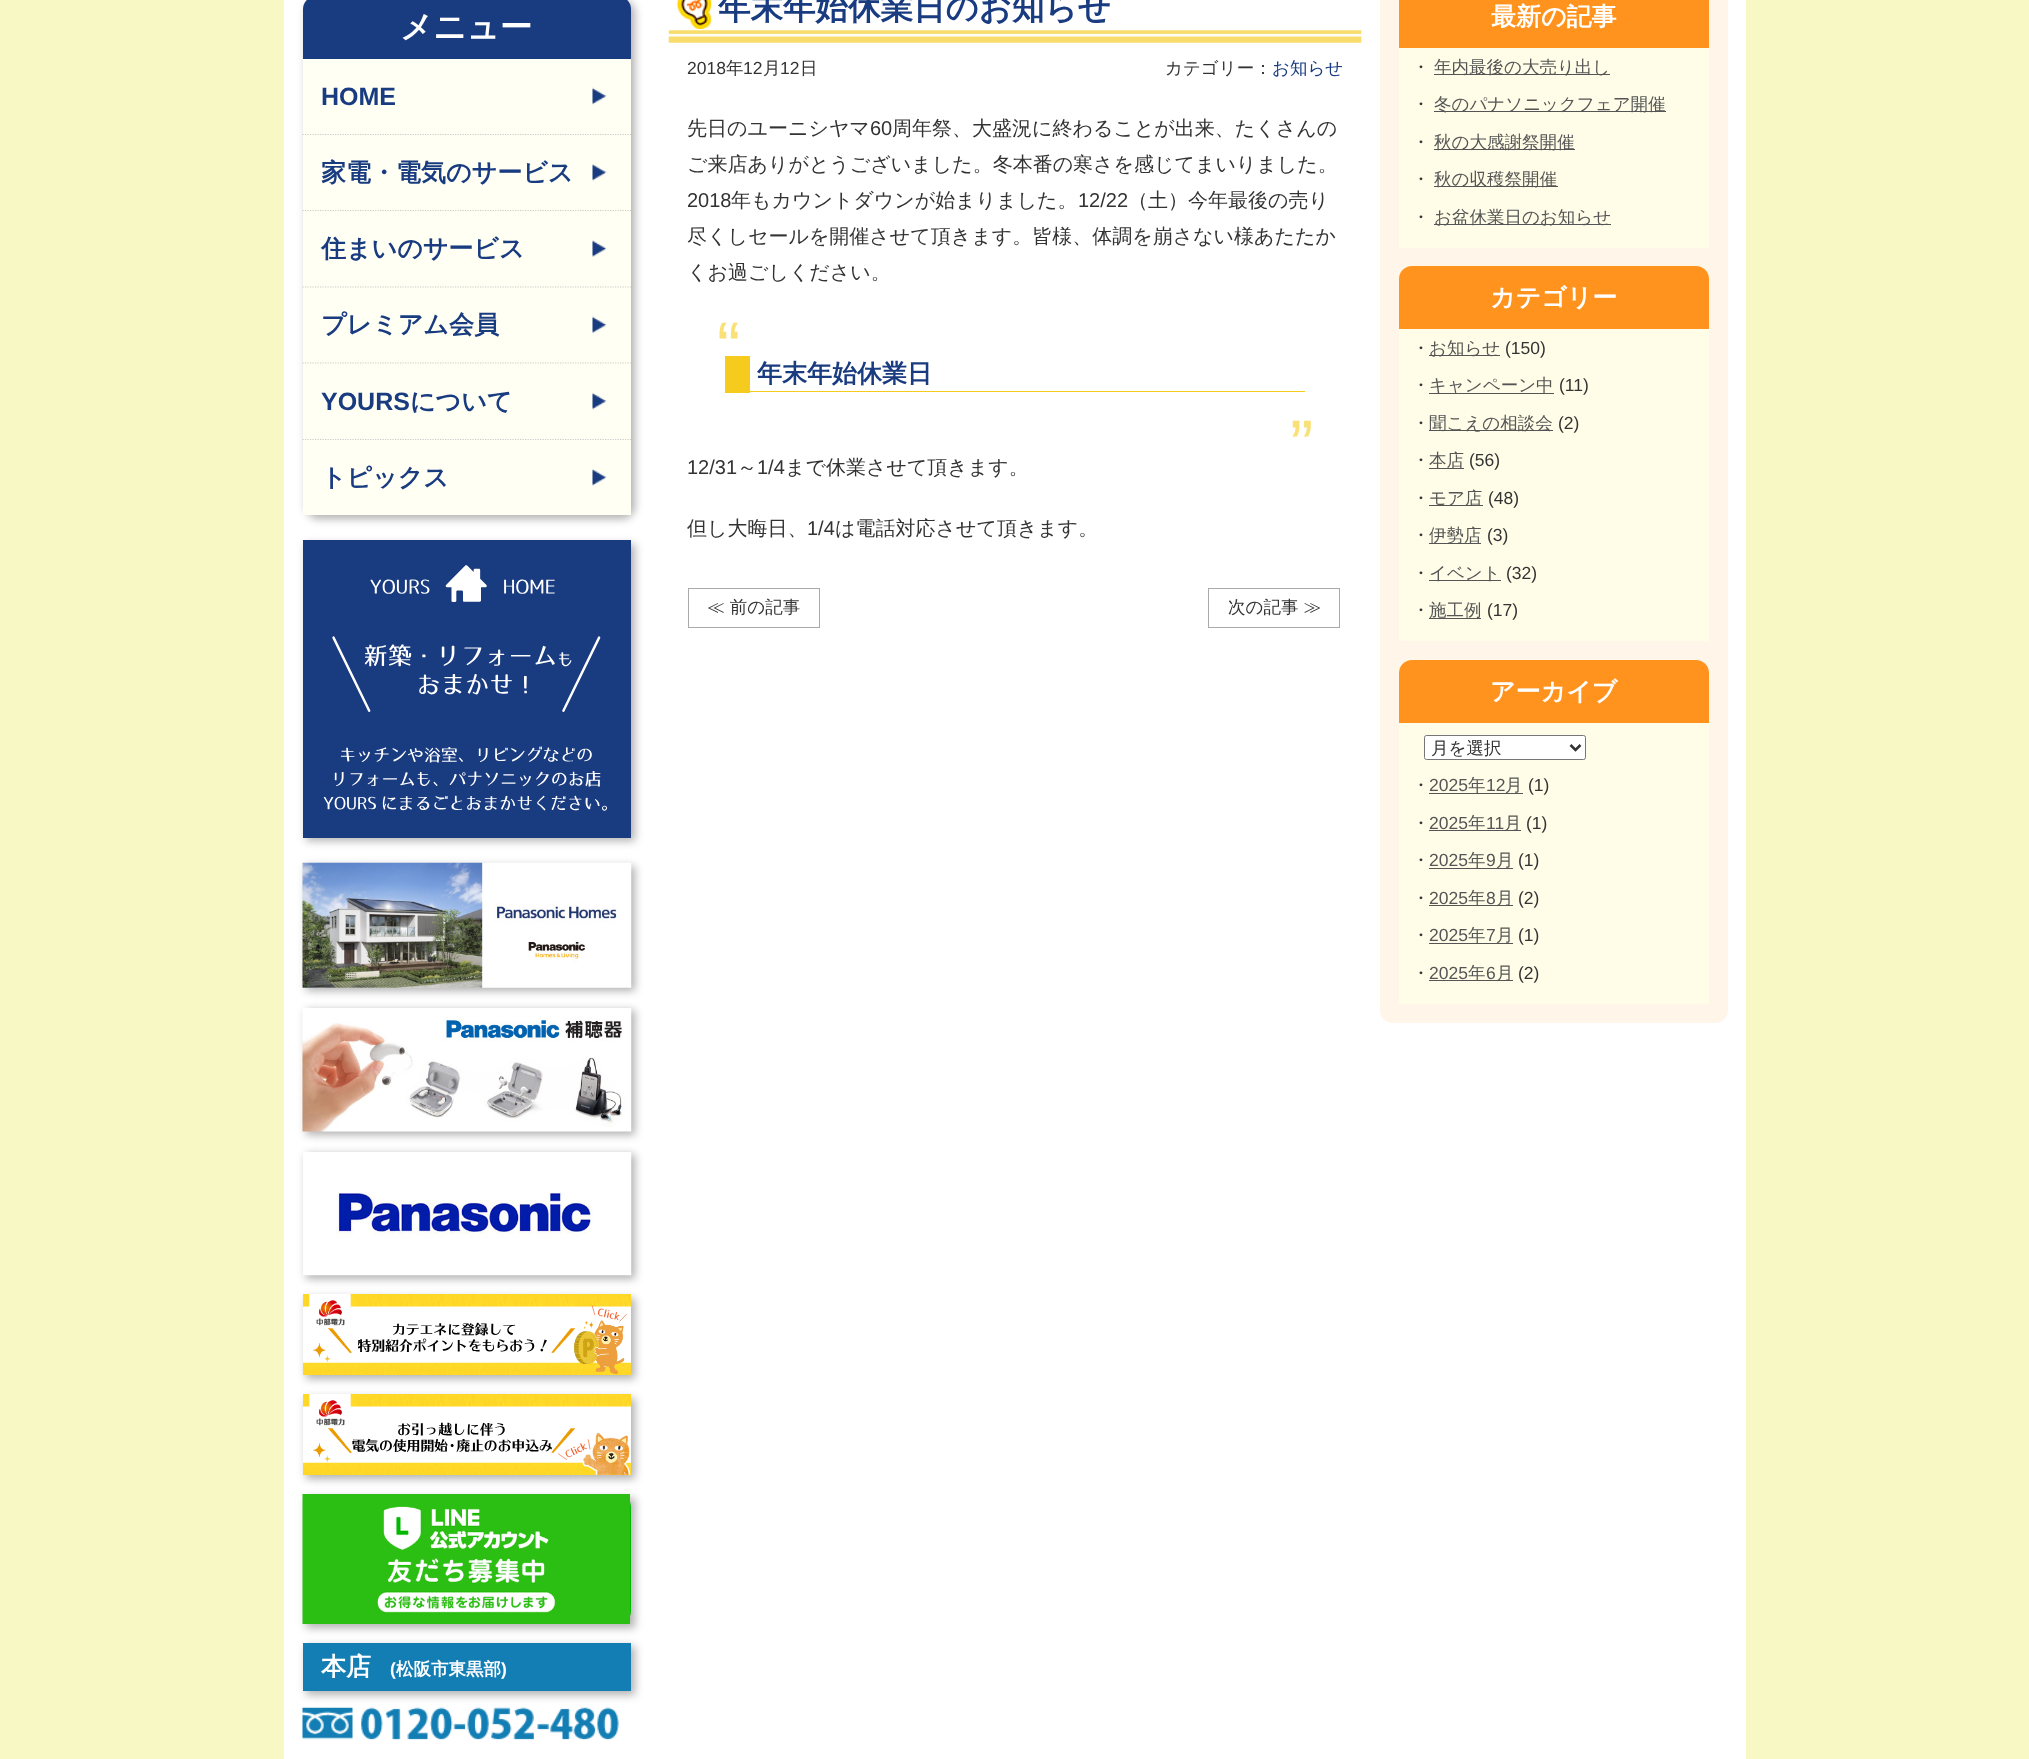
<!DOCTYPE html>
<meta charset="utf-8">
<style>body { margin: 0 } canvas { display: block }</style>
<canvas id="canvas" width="2029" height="1759"></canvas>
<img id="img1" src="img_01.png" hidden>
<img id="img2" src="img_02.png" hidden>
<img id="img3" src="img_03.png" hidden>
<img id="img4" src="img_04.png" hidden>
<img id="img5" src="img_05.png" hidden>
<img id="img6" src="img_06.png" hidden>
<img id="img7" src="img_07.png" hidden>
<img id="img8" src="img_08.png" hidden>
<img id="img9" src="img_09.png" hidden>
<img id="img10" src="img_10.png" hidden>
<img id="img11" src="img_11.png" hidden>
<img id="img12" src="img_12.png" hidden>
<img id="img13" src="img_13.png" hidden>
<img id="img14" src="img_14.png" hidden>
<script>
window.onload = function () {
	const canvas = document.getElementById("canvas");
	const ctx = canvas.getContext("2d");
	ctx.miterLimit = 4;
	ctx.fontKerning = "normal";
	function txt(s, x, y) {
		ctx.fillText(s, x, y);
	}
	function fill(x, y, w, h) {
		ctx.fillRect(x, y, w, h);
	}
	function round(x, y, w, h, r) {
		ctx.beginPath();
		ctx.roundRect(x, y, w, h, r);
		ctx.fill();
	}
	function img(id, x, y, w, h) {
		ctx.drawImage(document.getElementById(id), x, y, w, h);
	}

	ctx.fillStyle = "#F8F8C5";
	fill(0, 0, 2029, 1759);
	ctx.fillStyle = "#FFFFFF";
	fill(284, 0, 1462, 1759);
	ctx.fillStyle = "rgba(0, 0, 0, 0.3)";
	ctx.filter = "blur(4px)";
	ctx.beginPath();
	ctx.roundRect(306, 0, 329, 519, 13);
	ctx.fill();
	ctx.filter = "none";
	ctx.fillStyle = "#193B80";
	ctx.beginPath();
	ctx.moveTo(316, -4);
	ctx.lineTo(618, -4);
	ctx.bezierCurveTo(625, -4, 631, 2, 631, 9);
	ctx.lineTo(631, 59);
	ctx.lineTo(303, 59);
	ctx.lineTo(303, 9);
	ctx.bezierCurveTo(303, 2, 309, -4, 316, -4);
	ctx.closePath();
	ctx.fill();
	ctx.fillStyle = "#FFFFF3";
	fill(303, 59, 328, 456);
	img("img1", 592, 87, 15, 18);
	img("img2", 592, 164, 15, 17);
	ctx.beginPath();
	ctx.moveTo(302.5, 134.5);
	ctx.lineTo(631, 134.5);
	ctx.strokeStyle = "#CCCCCC";
	ctx.lineWidth = 1.2;
	ctx.setLineDash([1.25, 1.25]);
	ctx.stroke();
	img("img3", 592, 240, 15, 17);
	ctx.beginPath();
	ctx.moveTo(302.5, 210.5);
	ctx.lineTo(631, 210.5);
	ctx.stroke();
	img("img4", 592, 316, 15, 17);
	ctx.beginPath();
	ctx.moveTo(302.5, 287);
	ctx.lineTo(631, 287);
	ctx.stroke();
	img("img1", 592, 392, 15, 18);
	ctx.beginPath();
	ctx.moveTo(302.5, 363);
	ctx.lineTo(631, 363);
	ctx.stroke();
	img("img2", 592, 469, 15, 17);
	ctx.beginPath();
	ctx.moveTo(302.5, 439.5);
	ctx.lineTo(631, 439.5);
	ctx.stroke();
	ctx.fillStyle = "rgba(0, 0, 0, 0.3)";
	ctx.filter = "blur(4px)";
	ctx.beginPath();
	ctx.rect(306, 544, 329, 297);
	ctx.fill();
	ctx.filter = "none";
	ctx.fillStyle = "#193B80";
	fill(303, 540, 328, 298);
	img("img5", 323, 565, 284, 246);
	ctx.fillStyle = "rgba(0, 0, 0, 0.3)";
	ctx.filter = "blur(4px)";
	ctx.beginPath();
	ctx.rect(306, 866, 329, 125);
	ctx.fill();
	ctx.filter = "none";
	img("img6", 302, 862, 330, 126);
	ctx.filter = "blur(4px)";
	ctx.beginPath();
	ctx.rect(306, 1010, 329, 125);
	ctx.fill();
	ctx.filter = "none";
	img("img7", 302, 1008, 330, 124);
	ctx.filter = "blur(4px)";
	ctx.beginPath();
	ctx.rect(306, 1154, 329, 125);
	ctx.fill();
	ctx.filter = "none";
	img("img8", 303, 1152, 329, 124);
	ctx.save();
	ctx.beginPath();
	ctx.moveTo(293, 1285);
	ctx.lineTo(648, 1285);
	ctx.lineTo(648, 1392);
	ctx.lineTo(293, 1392);
	ctx.closePath();
	ctx.moveTo(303, 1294);
	ctx.lineTo(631, 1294);
	ctx.lineTo(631, 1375);
	ctx.lineTo(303, 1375);
	ctx.closePath();
	ctx.clip("evenodd");
	ctx.filter = "blur(4px)";
	ctx.beginPath();
	ctx.rect(306, 1298, 329, 81);
	ctx.fill();
	ctx.filter = "none";
	ctx.restore();
	img("img9", 303, 1294, 328, 81);
	ctx.save();
	ctx.beginPath();
	ctx.moveTo(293, 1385);
	ctx.lineTo(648, 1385);
	ctx.lineTo(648, 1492);
	ctx.lineTo(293, 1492);
	ctx.closePath();
	ctx.moveTo(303, 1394);
	ctx.lineTo(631, 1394);
	ctx.lineTo(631, 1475);
	ctx.lineTo(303, 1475);
	ctx.closePath();
	ctx.clip("evenodd");
	ctx.filter = "blur(4px)";
	ctx.beginPath();
	ctx.rect(306, 1398, 329, 81);
	ctx.fill();
	ctx.filter = "none";
	ctx.restore();
	img("img10", 303, 1394, 328, 81);
	ctx.filter = "blur(4px)";
	ctx.beginPath();
	ctx.rect(306, 1498, 329, 130);
	ctx.fill();
	ctx.filter = "none";
	ctx.fillStyle = "#00B900";
	round(303, 1494, 328, 130, 13);
	img("img11", 302, 1494, 328, 130);
	ctx.fillStyle = "rgba(0, 0, 0, 0.3)";
	ctx.filter = "blur(4px)";
	ctx.beginPath();
	ctx.rect(306, 1646, 329, 49);
	ctx.fill();
	ctx.filter = "none";
	ctx.fillStyle = "#127EB4";
	fill(303, 1643, 328, 48);
	img("img12", 302, 1707, 317, 33);
	img("img13", 676, 0, 36, 29);
	img("img14", 668, 30, 694, 13);
	ctx.fillStyle = "#F5CB1D";
	fill(750, 391, 555, 1);
	fill(725, 356, 25, 37);
	ctx.strokeStyle = "#AAAAAA";
	ctx.lineWidth = 1;
	ctx.setLineDash([]);
	ctx.strokeRect(688.5, 588.5, 131, 39);
	ctx.strokeRect(1208.5, 588.5, 131, 39);
	ctx.fillStyle = "#FFF5E9";
	round(1380, -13, 348, 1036, 13);
	ctx.fillStyle = "#FFFDE7";
	fill(1399, 48, 310, 200);
	ctx.fillStyle = "#FF931E";
	fill(1399, 0, 310, 48);
	ctx.fillStyle = "#555555";
	fill(1434, 74, 176, 1);
	fill(1434, 111, 232, 1);
	fill(1434, 149, 141, 1);
	fill(1434, 186, 124, 1);
	fill(1434, 224, 177, 1);
	ctx.fillStyle = "#FFFDE7";
	ctx.beginPath();
	ctx.roundRect(1399, 266, 310, 375, [13, 13, 0, 0]);
	ctx.fill();
	ctx.fillStyle = "#FF931E";
	ctx.beginPath();
	ctx.roundRect(1399, 266, 310, 63, [13, 13, 0, 0]);
	ctx.fill();
	ctx.fillStyle = "#555555";
	fill(1429, 355, 71, 1);
	fill(1429, 393, 125, 1);
	fill(1429, 430, 124, 1);
	fill(1429, 468, 35, 1);
	fill(1429, 505, 54, 1);
	fill(1429, 543, 52, 1);
	fill(1429, 580, 72, 1);
	fill(1429, 618, 52, 1);
	ctx.fillStyle = "#FFFDE7";
	ctx.beginPath();
	ctx.roundRect(1399, 660, 310, 106, [13, 13, 0, 0]);
	ctx.fill();
	ctx.fillStyle = "#FF931E";
	ctx.beginPath();
	ctx.roundRect(1399, 660, 310, 63, [13, 13, 0, 0]);
	ctx.fill();
	ctx.fillStyle = "#FFFFFF";
	ctx.beginPath();
	ctx.roundRect(1424.5, 735.5, 161, 24, 2);
	ctx.fill();
	ctx.strokeStyle = "#767676";
	ctx.stroke();
	ctx.beginPath();
	ctx.moveTo(1570.5, 745);
	ctx.lineTo(1575.5, 750);
	ctx.lineTo(1580.5, 745);
	ctx.strokeStyle = "#333333";
	ctx.lineWidth = 2.5;
	ctx.stroke();
	ctx.fillStyle = "#FFFDE7";
	fill(1399, 766, 310, 238);
	ctx.fillStyle = "#555555";
	fill(1429, 793, 94, 1);
	fill(1429, 830, 92, 1);
	fill(1429, 868, 84, 1);
	fill(1429, 905, 84, 1);
	fill(1429, 943, 84, 1);
	fill(1429, 980, 84, 1);
	ctx.font = "bold 32.5px WenQuanYi Zen Hei";
	ctx.fillStyle = "#FFFFFF";
	txt("メニュー", 400, 38);
	ctx.font = "bold 25px Liberation Sans";
	ctx.fillStyle = "#193B80";
	txt("HOME", 321, 105);
	ctx.font = "bold 25px WenQuanYi Zen Hei";
	txt("家電・電気のサービス", 321, 181);
	txt("住まいのサービス", 321, 257);
	txt("プレミアム会員", 321, 333);
	ctx.font = "bold 25px Liberation Sans";
	txt("YOURS", 321, 410);
	ctx.font = "bold 25px WenQuanYi Zen Hei";
	txt("について", 410, 410);
	txt("トピックス", 321, 486);
	ctx.fillStyle = "#FFFFFF";
	txt("本店", 321, 1675);
	ctx.font = "bold 17.5px Liberation Sans";
	txt("(", 390, 1675);
	ctx.font = "bold 17.5px WenQuanYi Zen Hei";
	txt("松阪市東黒部", 396, 1675);
	ctx.font = "bold 17.5px Liberation Sans";
	txt(")", 501, 1675);
	ctx.font = "bold 32.5px WenQuanYi Zen Hei";
	ctx.fillStyle = "#193B80";
	txt("年末年始休業日のお知らせ", 718, 19);
	ctx.font = "17.5px Liberation Sans";
	ctx.fillStyle = "#333333";
	txt("2018", 687, 74);
	ctx.font = "500 17.5px WenQuanYi Zen Hei";
	txt("年", 726, 74);
	ctx.font = "17.5px Liberation Sans";
	txt("12", 743, 74);
	ctx.font = "500 17.5px WenQuanYi Zen Hei";
	txt("月", 763, 74);
	ctx.font = "17.5px Liberation Sans";
	txt("12", 780, 74);
	ctx.font = "500 17.5px WenQuanYi Zen Hei";
	txt("日", 800, 74);
	txt("カテゴリー：", 1165, 74);
	ctx.fillStyle = "#193B80";
	txt("お知らせ", 1272, 74);
	ctx.font = "500 20px WenQuanYi Zen Hei";
	ctx.fillStyle = "#333333";
	txt("先日のユーニシヤマ", 687, 135);
	ctx.font = "20px Liberation Sans";
	txt("60", 870, 135);
	ctx.font = "500 20px WenQuanYi Zen Hei";
	txt("周年祭、大盛況に終わることが出来、たくさんの", 892, 135);
	txt("ご来店ありがとうございました。冬本番の寒さを感じてまいりました。", 687, 171);
	ctx.font = "20px Liberation Sans";
	txt("2018", 687, 207);
	ctx.font = "500 20px WenQuanYi Zen Hei";
	txt("年もカウントダウンが始まりました。", 731, 207);
	ctx.font = "20px Liberation Sans";
	txt("12/22", 1078, 207);
	ctx.font = "500 20px WenQuanYi Zen Hei";
	txt("（土）今年最後の売り", 1128, 207);
	txt("尽くしセールを開催させて頂きます。皆様、体調を崩さない様あたたか", 687, 243);
	txt("くお過ごしください。", 687, 279);
	ctx.font = "70px Liberation Sans";
	ctx.fillStyle = "#F9E077";
	txt("“", 717, 371);
	ctx.font = "bold 25px WenQuanYi Zen Hei";
	ctx.fillStyle = "#193B80";
	txt("年末年始休業日", 757, 382);
	ctx.font = "70px Liberation Sans";
	ctx.fillStyle = "#F9E077";
	txt("”", 1290, 469);
	ctx.font = "20px Liberation Sans";
	ctx.fillStyle = "#333333";
	txt("12/31", 687, 474);
	ctx.font = "500 20px WenQuanYi Zen Hei";
	txt("～", 737, 474);
	ctx.font = "20px Liberation Sans";
	txt("1/4", 757, 474);
	ctx.font = "500 20px WenQuanYi Zen Hei";
	txt("まで休業させて頂きます。", 785, 474);
	txt("但し大晦日、", 687, 535);
	ctx.font = "20px Liberation Sans";
	txt("1/4", 807, 535);
	ctx.font = "500 20px WenQuanYi Zen Hei";
	txt("は電話対応させて頂きます。", 835, 535);
	ctx.font = "500 17.5px WenQuanYi Zen Hei";
	txt("≪ 前の記事", 707, 613);
	txt("次の記事 ≫", 1228, 613);
	ctx.font = "bold 25px WenQuanYi Zen Hei";
	ctx.fillStyle = "#FFFFFF";
	txt("最新の記事", 1491, 25);
	ctx.font = "500 17.5px WenQuanYi Zen Hei";
	ctx.fillStyle = "#333333";
	txt("・", 1412, 73);
	ctx.fillStyle = "#555555";
	txt("年内最後の大売り出し", 1434, 73);
	ctx.fillStyle = "#333333";
	txt("・", 1412, 110);
	ctx.fillStyle = "#555555";
	txt("冬のパナソニックフェア開催", 1434, 110);
	ctx.fillStyle = "#333333";
	txt("・", 1412, 148);
	ctx.fillStyle = "#555555";
	txt("秋の大感謝祭開催", 1434, 148);
	ctx.fillStyle = "#333333";
	txt("・", 1412, 185);
	ctx.fillStyle = "#555555";
	txt("秋の収穫祭開催", 1434, 185);
	ctx.fillStyle = "#333333";
	txt("・", 1412, 223);
	ctx.fillStyle = "#555555";
	txt("お盆休業日のお知らせ", 1434, 223);
	ctx.font = "bold 25px WenQuanYi Zen Hei";
	ctx.fillStyle = "#FFFFFF";
	txt("カテゴリー", 1490, 306);
	ctx.font = "500 17.5px WenQuanYi Zen Hei";
	ctx.fillStyle = "#333333";
	txt("・", 1412, 354);
	ctx.fillStyle = "#555555";
	txt("お知らせ", 1429, 354);
	ctx.font = "17.5px Liberation Sans";
	ctx.fillStyle = "#333333";
	txt("(150)", 1505, 354);
	ctx.font = "500 17.5px WenQuanYi Zen Hei";
	txt("・", 1412, 391);
	ctx.fillStyle = "#555555";
	txt("キャンペーン中", 1429, 391);
	ctx.font = "17.5px Liberation Sans";
	ctx.fillStyle = "#333333";
	txt("(11)", 1559, 391);
	ctx.font = "500 17.5px WenQuanYi Zen Hei";
	txt("・", 1412, 429);
	ctx.fillStyle = "#555555";
	txt("聞こえの相談会", 1429, 429);
	ctx.font = "17.5px Liberation Sans";
	ctx.fillStyle = "#333333";
	txt("(2)", 1558, 429);
	ctx.font = "500 17.5px WenQuanYi Zen Hei";
	txt("・", 1412, 466);
	ctx.fillStyle = "#555555";
	txt("本店", 1429, 466);
	ctx.font = "17.5px Liberation Sans";
	ctx.fillStyle = "#333333";
	txt("(56)", 1469, 466);
	ctx.font = "500 17.5px WenQuanYi Zen Hei";
	txt("・", 1412, 504);
	ctx.fillStyle = "#555555";
	txt("モア店", 1429, 504);
	ctx.font = "17.5px Liberation Sans";
	ctx.fillStyle = "#333333";
	txt("(48)", 1488, 504);
	ctx.font = "500 17.5px WenQuanYi Zen Hei";
	txt("・", 1412, 541);
	ctx.fillStyle = "#555555";
	txt("伊勢店", 1429, 541);
	ctx.font = "17.5px Liberation Sans";
	ctx.fillStyle = "#333333";
	txt("(3)", 1487, 541);
	ctx.font = "500 17.5px WenQuanYi Zen Hei";
	txt("・", 1412, 579);
	ctx.fillStyle = "#555555";
	txt("イベント", 1429, 579);
	ctx.font = "17.5px Liberation Sans";
	ctx.fillStyle = "#333333";
	txt("(32)", 1506, 579);
	ctx.font = "500 17.5px WenQuanYi Zen Hei";
	txt("・", 1412, 616);
	ctx.fillStyle = "#555555";
	txt("施工例", 1429, 616);
	ctx.font = "17.5px Liberation Sans";
	ctx.fillStyle = "#333333";
	txt("(17)", 1487, 616);
	ctx.font = "bold 25px WenQuanYi Zen Hei";
	ctx.fillStyle = "#FFFFFF";
	txt("アーカイブ", 1490, 700);
	ctx.font = "500 17.5px WenQuanYi Zen Hei";
	ctx.fillStyle = "#333333";
	txt("月を選択", 1431, 754);
	txt("・", 1412, 791);
	ctx.font = "17.5px Liberation Sans";
	ctx.fillStyle = "#555555";
	txt("2025", 1429, 791);
	ctx.font = "500 17.5px WenQuanYi Zen Hei";
	txt("年", 1468, 791);
	ctx.font = "17.5px Liberation Sans";
	txt("12", 1486, 791);
	ctx.font = "500 17.5px WenQuanYi Zen Hei";
	txt("月", 1505, 791);
	ctx.font = "17.5px Liberation Sans";
	ctx.fillStyle = "#333333";
	txt("(1)", 1528, 791);
	ctx.font = "500 17.5px WenQuanYi Zen Hei";
	txt("・", 1412, 829);
	ctx.font = "17.5px Liberation Sans";
	ctx.fillStyle = "#555555";
	txt("2025", 1429, 829);
	ctx.font = "500 17.5px WenQuanYi Zen Hei";
	txt("年", 1468, 829);
	ctx.font = "17.5px Liberation Sans";
	txt("11", 1486, 829);
	ctx.font = "500 17.5px WenQuanYi Zen Hei";
	txt("月", 1504, 829);
	ctx.font = "17.5px Liberation Sans";
	ctx.fillStyle = "#333333";
	txt("(1)", 1526, 829);
	ctx.font = "500 17.5px WenQuanYi Zen Hei";
	txt("・", 1412, 866);
	ctx.font = "17.5px Liberation Sans";
	ctx.fillStyle = "#555555";
	txt("2025", 1429, 866);
	ctx.font = "500 17.5px WenQuanYi Zen Hei";
	txt("年", 1468, 866);
	ctx.font = "17.5px Liberation Sans";
	txt("9", 1486, 866);
	ctx.font = "500 17.5px WenQuanYi Zen Hei";
	txt("月", 1496, 866);
	ctx.font = "17.5px Liberation Sans";
	ctx.fillStyle = "#333333";
	txt("(1)", 1518, 866);
	ctx.font = "500 17.5px WenQuanYi Zen Hei";
	txt("・", 1412, 904);
	ctx.font = "17.5px Liberation Sans";
	ctx.fillStyle = "#555555";
	txt("2025", 1429, 904);
	ctx.font = "500 17.5px WenQuanYi Zen Hei";
	txt("年", 1468, 904);
	ctx.font = "17.5px Liberation Sans";
	txt("8", 1486, 904);
	ctx.font = "500 17.5px WenQuanYi Zen Hei";
	txt("月", 1496, 904);
	ctx.font = "17.5px Liberation Sans";
	ctx.fillStyle = "#333333";
	txt("(2)", 1518, 904);
	ctx.font = "500 17.5px WenQuanYi Zen Hei";
	txt("・", 1412, 941);
	ctx.font = "17.5px Liberation Sans";
	ctx.fillStyle = "#555555";
	txt("2025", 1429, 941);
	ctx.font = "500 17.5px WenQuanYi Zen Hei";
	txt("年", 1468, 941);
	ctx.font = "17.5px Liberation Sans";
	txt("7", 1486, 941);
	ctx.font = "500 17.5px WenQuanYi Zen Hei";
	txt("月", 1496, 941);
	ctx.font = "17.5px Liberation Sans";
	ctx.fillStyle = "#333333";
	txt("(1)", 1518, 941);
	ctx.font = "500 17.5px WenQuanYi Zen Hei";
	txt("・", 1412, 979);
	ctx.font = "17.5px Liberation Sans";
	ctx.fillStyle = "#555555";
	txt("2025", 1429, 979);
	ctx.font = "500 17.5px WenQuanYi Zen Hei";
	txt("年", 1468, 979);
	ctx.font = "17.5px Liberation Sans";
	txt("6", 1486, 979);
	ctx.font = "500 17.5px WenQuanYi Zen Hei";
	txt("月", 1496, 979);
	ctx.font = "17.5px Liberation Sans";
	ctx.fillStyle = "#333333";
	txt("(2)", 1518, 979);
};
</script>
